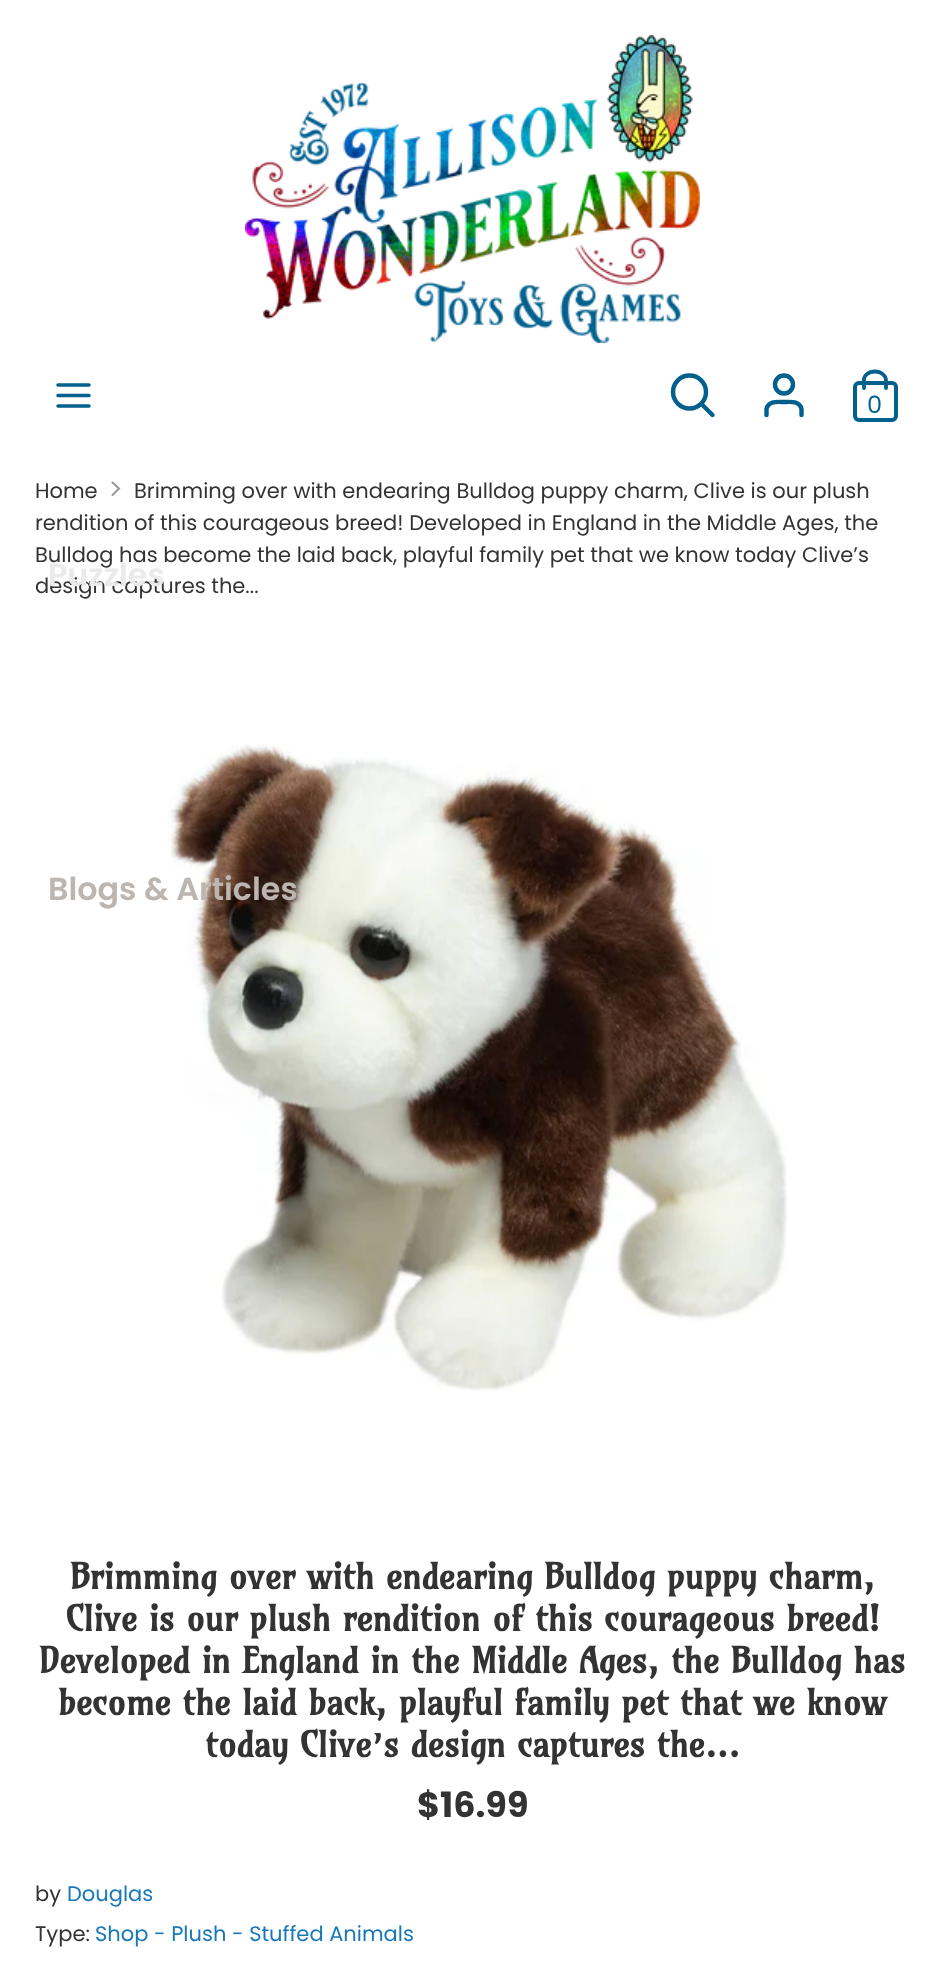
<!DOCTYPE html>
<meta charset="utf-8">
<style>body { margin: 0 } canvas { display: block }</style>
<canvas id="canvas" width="945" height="1962"></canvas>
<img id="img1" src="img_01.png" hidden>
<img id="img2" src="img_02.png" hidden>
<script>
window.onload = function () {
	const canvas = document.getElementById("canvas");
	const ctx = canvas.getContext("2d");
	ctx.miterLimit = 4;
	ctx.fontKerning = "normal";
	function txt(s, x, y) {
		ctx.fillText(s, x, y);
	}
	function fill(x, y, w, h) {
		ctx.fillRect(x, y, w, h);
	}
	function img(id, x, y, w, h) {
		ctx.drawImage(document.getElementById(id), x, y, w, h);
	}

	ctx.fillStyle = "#FFFFFF";
	fill(0, 0, 945, 1962);
	img("img1", 245, 35, 455, 308);
	ctx.beginPath();
	ctx.moveTo(58, 395.5);
	ctx.lineTo(89, 395.5);
	ctx.moveTo(58, 385);
	ctx.lineTo(89, 385);
	ctx.moveTo(58, 406);
	ctx.lineTo(89, 406);
	ctx.strokeStyle = "#02608D";
	ctx.lineWidth = 3.5;
	ctx.lineCap = "round";
	ctx.stroke();
	ctx.beginPath();
	ctx.arc(689.5, 392, 16.5, 0, Math.PI * 2);
	ctx.lineWidth = 4.4;
	ctx.stroke();
	ctx.beginPath();
	ctx.moveTo(712.5, 415);
	ctx.lineTo(701.5, 404);
	ctx.stroke();
	ctx.beginPath();
	ctx.moveTo(801.5, 415);
	ctx.lineTo(801.5, 409);
	ctx.bezierCurveTo(799.5, 400.5, 790.5, 402, 784, 402);
	ctx.bezierCurveTo(777.5, 402, 768.5, 400.5, 766.5, 409);
	ctx.lineTo(766.5, 415);
	ctx.stroke();
	ctx.beginPath();
	ctx.arc(784, 384.5, 9, 0, Math.PI * 2);
	ctx.stroke();
	ctx.beginPath();
	ctx.roundRect(855, 383, 41, 37, 4);
	ctx.lineWidth = 4;
	ctx.stroke();
	ctx.beginPath();
	ctx.moveTo(864, 388);
	ctx.lineTo(864, 380.5);
	ctx.bezierCurveTo(863.5, 375.5, 868.5, 371.5, 875, 371.5);
	ctx.bezierCurveTo(881, 371.5, 886, 375.5, 886, 380.5);
	ctx.lineTo(886, 388);
	ctx.lineWidth = 3.8;
	ctx.stroke();
	ctx.beginPath();
	ctx.moveTo(112.5, 495);
	ctx.lineTo(119, 488.5);
	ctx.lineTo(112.5, 482.5);
	ctx.strokeStyle = "#999999";
	ctx.lineWidth = 2.1;
	ctx.stroke();
	img("img2", 168, 744, 620, 649);
	ctx.font = "24px Poppins";
	ctx.fillStyle = "#02608D";
	txt("0", 867, 413);
	ctx.font = "600 31.75px Poppins";
	ctx.fillStyle = "#BDB5B0";
	txt("Blogs & Articles", 48, 900);
	ctx.font = "21px Poppins";
	ctx.fillStyle = "#333333";
	txt("Home", 35, 498);
	txt("Brimming over with endearing Bulldog puppy charm, Clive is our plush", 134, 498);
	txt("rendition of this courageous breed! Developed in England in the Middle Ages, the", 35, 530);
	txt("Bulldog has become the laid back, playful family pet that we know today Clive’s", 35, 562);
	txt("design captures the...", 35, 593);
	ctx.font = "600 31.75px Poppins";
	ctx.fillStyle = "#EAEAEA";
	txt("Puzzles", 48, 586);
	ctx.font = "bold 35px Amarante";
	ctx.fillStyle = "#333333";
	txt("Brimming over with endearing Bulldog puppy charm,", 70, 1589);
	txt("Clive is our plush rendition of this courageous breed!", 66, 1631);
	txt("Developed in England in the Middle Ages, the Bulldog has", 39, 1673);
	txt("become the laid back, playful family pet that we know", 58, 1715);
	txt("today Clive’s design captures the...", 205, 1757);
	ctx.font = "bold 35px Poppins";
	txt("$16.99", 417, 1817);
	ctx.font = "21px Poppins";
	txt("by", 35, 1901);
	ctx.fillStyle = "#1878B9";
	txt("Douglas", 67, 1901);
	ctx.fillStyle = "#333333";
	txt("Type:", 35, 1941);
	ctx.fillStyle = "#1878B9";
	txt("Shop - Plush - Stuffed Animals", 95, 1941);
};
</script>
